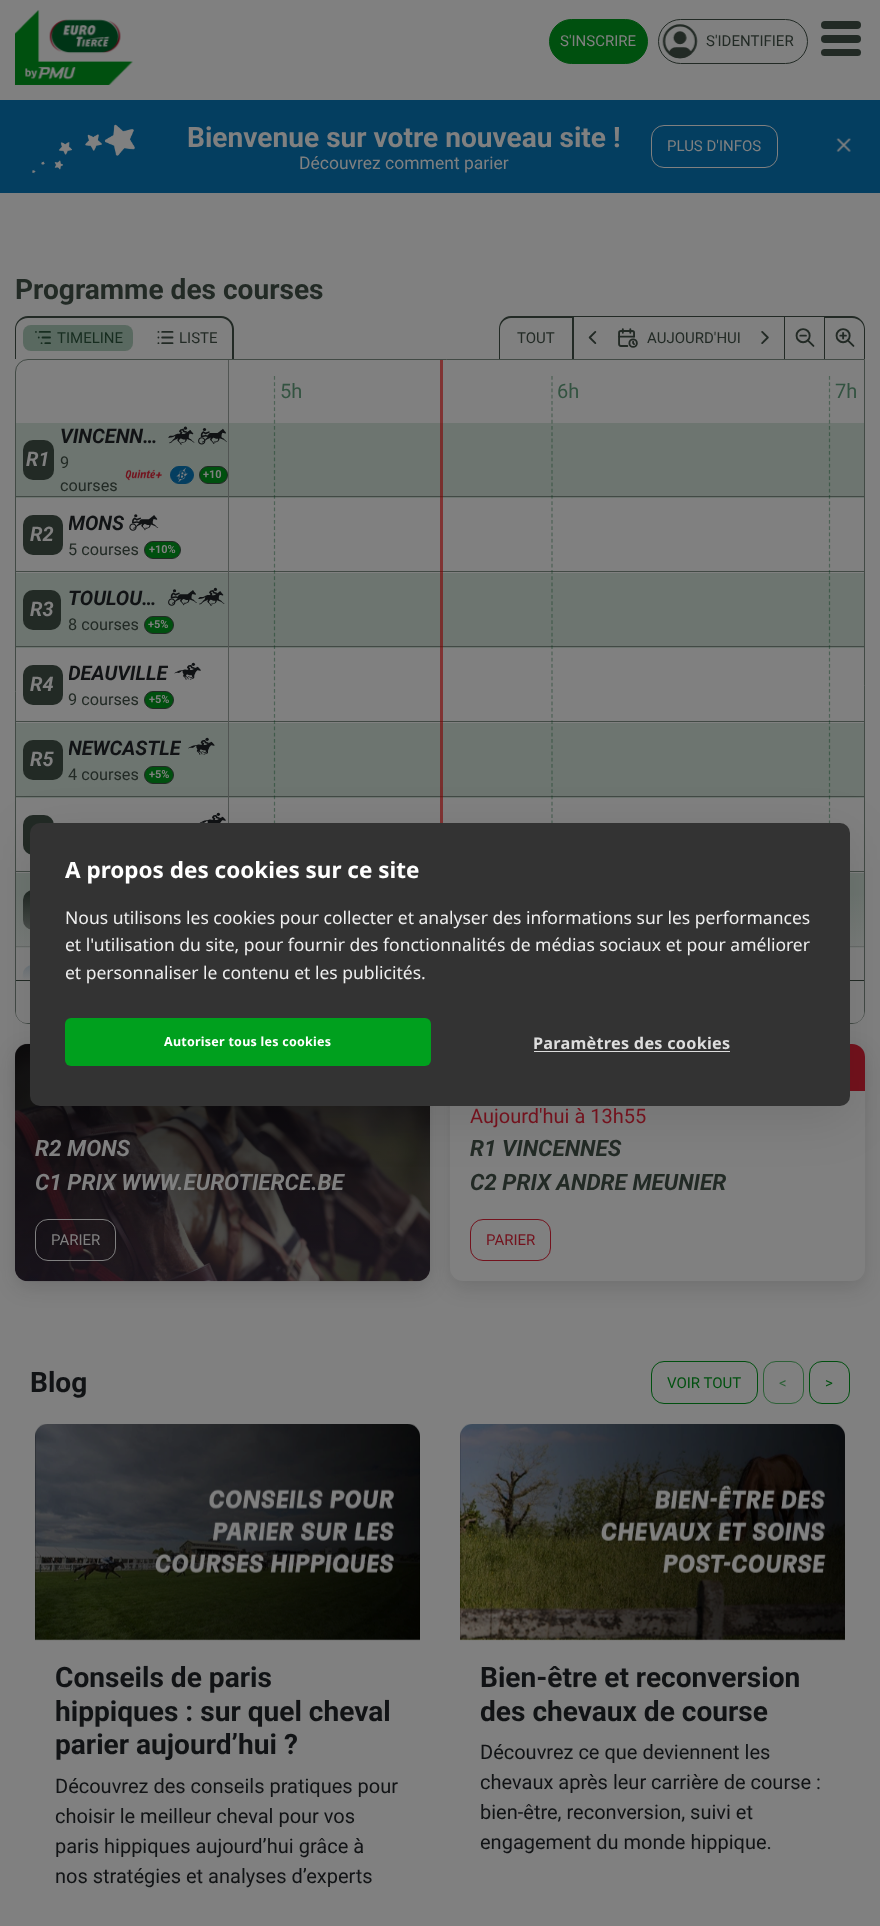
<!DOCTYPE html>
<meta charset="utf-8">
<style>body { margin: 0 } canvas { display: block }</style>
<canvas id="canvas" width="880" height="1926"></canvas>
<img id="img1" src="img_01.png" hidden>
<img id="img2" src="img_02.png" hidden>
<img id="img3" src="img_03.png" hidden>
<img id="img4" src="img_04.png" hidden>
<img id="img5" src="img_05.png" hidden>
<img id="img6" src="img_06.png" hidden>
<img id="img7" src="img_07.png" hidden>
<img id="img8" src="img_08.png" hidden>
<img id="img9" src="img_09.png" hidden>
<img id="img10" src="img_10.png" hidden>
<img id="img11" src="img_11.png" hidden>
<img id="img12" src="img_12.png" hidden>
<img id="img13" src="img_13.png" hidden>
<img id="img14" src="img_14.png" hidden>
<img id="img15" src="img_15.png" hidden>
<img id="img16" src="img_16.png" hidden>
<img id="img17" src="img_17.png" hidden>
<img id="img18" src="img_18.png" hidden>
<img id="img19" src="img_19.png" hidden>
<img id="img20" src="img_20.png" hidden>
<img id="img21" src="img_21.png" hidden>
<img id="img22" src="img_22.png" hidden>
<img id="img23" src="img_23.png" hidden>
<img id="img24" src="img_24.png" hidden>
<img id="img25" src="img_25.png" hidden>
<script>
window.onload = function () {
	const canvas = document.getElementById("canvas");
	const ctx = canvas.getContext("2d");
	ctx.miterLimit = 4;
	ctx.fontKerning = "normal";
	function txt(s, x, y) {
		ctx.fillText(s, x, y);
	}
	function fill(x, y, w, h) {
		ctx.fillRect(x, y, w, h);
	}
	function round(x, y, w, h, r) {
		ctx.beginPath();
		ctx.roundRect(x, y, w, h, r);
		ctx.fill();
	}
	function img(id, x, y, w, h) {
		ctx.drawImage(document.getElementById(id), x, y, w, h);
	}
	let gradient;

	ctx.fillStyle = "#808080";
	fill(0, 0, 880, 1926);
	ctx.fillStyle = "#803333";
	fill(440, 360, 3, 463);
	img("img1", 15, 10, 118, 75);
	ctx.fillStyle = "#00500F";
	ctx.beginPath();
	ctx.roundRect(549.5, 19.5, 98, 44, 22);
	ctx.fill();
	ctx.strokeStyle = "#00500F";
	ctx.stroke();
	ctx.beginPath();
	ctx.roundRect(658.5, 19.5, 149, 44, 22);
	ctx.strokeStyle = "#222A25";
	ctx.stroke();
	img("img2", 662, 24, 36, 35);
	ctx.fillStyle = "#222A25";
	round(821, 21, 40, 8, 4);
	round(821, 35, 40, 8, 4);
	round(821, 49, 40, 7, 3.5);
	ctx.fillStyle = "#043E60";
	fill(0, 100, 880, 93);
	img("img3", 32, 124, 103, 50);
	ctx.beginPath();
	ctx.roundRect(651.5, 125.5, 126, 42, 12.5);
	ctx.strokeStyle = "#808080";
	ctx.stroke();
	img("img4", 836, 138, 15, 14);
	ctx.fillStyle = "#222A25";
	ctx.beginPath();
	ctx.moveTo(28, 316);
	ctx.lineTo(139, 316);
	ctx.lineTo(139, 359);
	ctx.lineTo(15, 359);
	ctx.lineTo(15, 329);
	ctx.bezierCurveTo(15, 322, 21, 316, 28, 316);
	ctx.closePath();
	ctx.moveTo(28, 318);
	ctx.lineTo(139, 318);
	ctx.lineTo(139, 359);
	ctx.lineTo(16, 359);
	ctx.lineTo(16, 329);
	ctx.bezierCurveTo(16, 323, 21, 318, 28, 318);
	ctx.closePath();
	ctx.fill("evenodd");
	img("img5", 35, 331, 16, 13);
	ctx.beginPath();
	ctx.moveTo(139, 316);
	ctx.lineTo(221, 316);
	ctx.bezierCurveTo(228, 316, 234, 322, 234, 329);
	ctx.lineTo(234, 359);
	ctx.lineTo(139, 359);
	ctx.closePath();
	ctx.moveTo(139, 318);
	ctx.lineTo(221, 318);
	ctx.bezierCurveTo(227, 318, 232, 323, 232, 329);
	ctx.lineTo(232, 359);
	ctx.lineTo(139, 359);
	ctx.closePath();
	ctx.fill("evenodd");
	img("img6", 157, 331, 17, 13);
	ctx.beginPath();
	ctx.moveTo(511, 316);
	ctx.lineTo(574, 316);
	ctx.lineTo(574, 359);
	ctx.lineTo(499, 359);
	ctx.lineTo(499, 329);
	ctx.bezierCurveTo(499, 322, 504, 316, 511, 316);
	ctx.closePath();
	ctx.moveTo(511, 318);
	ctx.lineTo(572, 318);
	ctx.lineTo(572, 359);
	ctx.lineTo(500, 359);
	ctx.lineTo(500, 329);
	ctx.bezierCurveTo(500, 323, 505, 318, 511, 318);
	ctx.closePath();
	ctx.fill("evenodd");
	fill(573, 316, 212, 1);
	fill(784, 316, 1, 43);
	img("img7", 588, 331, 9, 13);
	img("img8", 618, 328, 20, 20);
	img("img9", 761, 331, 8, 13);
	fill(784, 316, 41, 1);
	img("img10", 795, 328, 20, 19);
	ctx.beginPath();
	ctx.moveTo(824, 316);
	ctx.lineTo(852, 316);
	ctx.bezierCurveTo(859, 316, 865, 322, 865, 329);
	ctx.lineTo(865, 359);
	ctx.lineTo(824, 359);
	ctx.closePath();
	ctx.moveTo(825, 318);
	ctx.lineTo(852, 318);
	ctx.bezierCurveTo(859, 318, 864, 323, 864, 329);
	ctx.lineTo(864, 359);
	ctx.lineTo(825, 359);
	ctx.closePath();
	ctx.fill("evenodd");
	img("img11", 835, 328, 20, 19);
	ctx.beginPath();
	ctx.roundRect(15.5, 359.5, 849, 664, [12.5, 0, 12.5, 12.5]);
	ctx.strokeStyle = "#424A45";
	ctx.stroke();
	ctx.fillStyle = "#6D7570";
	fill(229, 423, 635, 75);
	ctx.fillStyle = "#782F2D";
	fill(440, 423, 3, 75);
	ctx.fillStyle = "#424A45";
	fill(229, 496, 635, 1);
	fill(229, 571, 635, 1);
	ctx.fillStyle = "#6D7570";
	fill(229, 573, 635, 75);
	ctx.fillStyle = "#782F2D";
	fill(440, 573, 3, 75);
	ctx.fillStyle = "#424A45";
	fill(229, 646, 635, 1);
	fill(229, 721, 635, 1);
	ctx.fillStyle = "#6D7570";
	fill(229, 723, 635, 75);
	ctx.fillStyle = "#782F2D";
	fill(440, 723, 3, 75);
	ctx.fillStyle = "#424A45";
	fill(229, 796, 635, 1);
	ctx.fillStyle = "rgba(17, 19, 21, 0.15)";
	ctx.filter = "blur(10px)";
	ctx.beginPath();
	ctx.roundRect(15, 1050, 415, 238, 13);
	ctx.fill();
	ctx.filter = "none";
	ctx.save();
	ctx.beginPath();
	ctx.rect(229, 360, 635, 663);
	ctx.clip();
	ctx.beginPath();
	ctx.moveTo(274.5, 376);
	ctx.lineTo(274.5, 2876);
	ctx.strokeStyle = "rgba(0, 53, 23, 0.4)";
	ctx.lineWidth = 1.2;
	ctx.setLineDash([3.75, 2.51]);
	ctx.stroke();
	ctx.restore();
	ctx.filter = "blur(10px)";
	ctx.beginPath();
	ctx.roundRect(450, 1050, 415, 238, 13);
	ctx.fill();
	ctx.filter = "none";
	ctx.save();
	ctx.beginPath();
	ctx.rect(229, 360, 635, 663);
	ctx.clip();
	ctx.beginPath();
	ctx.moveTo(552, 376);
	ctx.lineTo(552, 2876);
	ctx.strokeStyle = "rgba(0, 53, 23, 0.4)";
	ctx.lineWidth = 1.2;
	ctx.setLineDash([3.75, 2.51]);
	ctx.stroke();
	ctx.beginPath();
	ctx.moveTo(829.5, 376);
	ctx.lineTo(829.5, 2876);
	ctx.stroke();
	ctx.restore();
	ctx.fillStyle = "#671E1C";
	fill(440, 496, 3, 1);
	fill(440, 571, 3, 1);
	fill(440, 646, 3, 1);
	fill(440, 721, 3, 1);
	fill(440, 796, 3, 1);
	ctx.fillStyle = "#424A45";
	fill(850, 871, 14, 1);
	ctx.fillStyle = "#6D7570";
	fill(850, 873, 14, 75);
	ctx.fillStyle = "#424A45";
	fill(850, 946, 14, 1);
	ctx.fillStyle = "#515553";
	fill(228, 360, 1, 463);
	ctx.fillStyle = "#6D7570";
	fill(16, 423, 212, 75);
	ctx.fillStyle = "#424A45";
	fill(16, 496, 212, 1);
	ctx.fillStyle = "#222A25";
	round(23, 440, 31, 40, 10);
	img("img12", 168, 426, 27, 19);
	img("img13", 198, 428, 29, 17);
	img("img14", 125, 469, 37, 12);
	ctx.fillStyle = "#043E60";
	ctx.beginPath();
	ctx.roundRect(170.5, 466.5, 23, 17, 8.5);
	ctx.fill();
	ctx.strokeStyle = "#043E60";
	ctx.stroke();
	img("img15", 176, 467, 12, 16);
	ctx.fillStyle = "#00500F";
	ctx.beginPath();
	ctx.roundRect(199.5, 466.5, 28, 17, 8.5);
	ctx.fill();
	ctx.strokeStyle = "#222A25";
	ctx.stroke();
	ctx.fillStyle = "#424A45";
	fill(16, 571, 212, 1);
	ctx.fillStyle = "#222A25";
	round(23, 515, 40, 40, 10);
	img("img16", 129, 514, 30, 17);
	ctx.fillStyle = "#00500F";
	ctx.beginPath();
	ctx.roundRect(144.5, 541.5, 36, 17, 8.5);
	ctx.fill();
	ctx.stroke();
	ctx.fillStyle = "#6D7570";
	fill(16, 573, 212, 75);
	ctx.fillStyle = "#424A45";
	fill(16, 646, 212, 1);
	ctx.fillStyle = "#222A25";
	round(23, 590, 38, 40, 10);
	img("img17", 168, 589, 29, 17);
	img("img18", 198, 587, 27, 19);
	ctx.fillStyle = "#00500F";
	ctx.beginPath();
	ctx.roundRect(144.5, 616.5, 29, 17, 8.5);
	ctx.fill();
	ctx.stroke();
	ctx.fillStyle = "#424A45";
	fill(16, 721, 212, 1);
	ctx.fillStyle = "#222A25";
	round(23, 665, 40, 40, 10);
	img("img19", 174, 662, 27, 18);
	ctx.fillStyle = "#00500F";
	ctx.beginPath();
	ctx.roundRect(144.5, 691.5, 29, 17, 8.5);
	ctx.fill();
	ctx.stroke();
	ctx.fillStyle = "#6D7570";
	fill(16, 723, 212, 75);
	ctx.fillStyle = "#424A45";
	fill(16, 796, 212, 1);
	ctx.fillStyle = "#222A25";
	round(23, 740, 40, 40, 10);
	img("img20", 188, 737, 27, 18);
	ctx.fillStyle = "#00500F";
	ctx.beginPath();
	ctx.roundRect(144.5, 766.5, 29, 17, 8.5);
	ctx.fill();
	ctx.stroke();
	ctx.fillStyle = "#424A45";
	fill(16, 871, 14, 1);
	ctx.fillStyle = "#222A25";
	round(23, 815, 31, 40, 10);
	img("img21", 199, 812, 27, 11);
	ctx.fillStyle = "#6D7570";
	fill(16, 873, 14, 75);
	ctx.fillStyle = "#424A45";
	fill(16, 946, 14, 1);
	ctx.fillStyle = "#222A25";
	round(23, 890, 40, 40, 10);
	img("img22", 22, 965, 8, 14);
	ctx.fillStyle = "#808080";
	ctx.beginPath();
	ctx.roundRect(16, 980, 848, 43, [0, 0, 11, 11]);
	ctx.fill();
	ctx.fillStyle = "#222A25";
	fill(16, 980, 848, 1);
	gradient = ctx.createLinearGradient(440, 893, 440, 980);
	gradient.addColorStop(0, "rgba(128, 128, 128, 0)");
	gradient.addColorStop(1, "#808080");
	ctx.fillStyle = gradient;
	fill(16, 895, 848, 85);
	img("img23", 15, 1043, 415, 239);
	gradient = ctx.createLinearGradient(223, 1044, 223, 1281);
	gradient.addColorStop(0, "rgba(0, 0, 0, 0.77)");
	gradient.addColorStop(1, "rgba(0, 0, 0, 0.23)");
	ctx.fillStyle = gradient;
	round(15, 1044, 415, 237, 13);
	ctx.beginPath();
	ctx.roundRect(35.5, 1219.5, 80, 41, 12.5);
	ctx.strokeStyle = "#808080";
	ctx.stroke();
	ctx.fillStyle = "#808080";
	round(450, 1044, 415, 237, 13);
	ctx.fillStyle = "#73121D";
	ctx.beginPath();
	ctx.roundRect(450, 1044, 415, 47, [13, 13, 0, 0]);
	ctx.fill();
	ctx.beginPath();
	ctx.roundRect(470.5, 1219.5, 80, 41, 12.5);
	ctx.strokeStyle = "#73121D";
	ctx.stroke();
	ctx.beginPath();
	ctx.roundRect(651.5, 1361.5, 106, 42, 12.5);
	ctx.strokeStyle = "#00500F";
	ctx.stroke();
	ctx.beginPath();
	ctx.roundRect(763.5, 1361.5, 40, 42, 12.5);
	ctx.strokeStyle = "#2D6137";
	ctx.stroke();
	ctx.beginPath();
	ctx.roundRect(809.5, 1361.5, 40, 42, 12.5);
	ctx.strokeStyle = "#00500F";
	ctx.stroke();
	img("img24", 35, 1424, 385, 217);
	img("img25", 460, 1424, 385, 217);
	ctx.fillStyle = "rgba(0, 0, 0, 0.1)";
	ctx.filter = "blur(25px)";
	ctx.beginPath();
	ctx.roundRect(30, 835, 820, 284, 10);
	ctx.fill();
	ctx.filter = "none";
	ctx.fillStyle = "#333333";
	round(30, 823, 820, 283, 10);
	ctx.fillStyle = "#00A01E";
	round(65, 1018, 366, 48, 6);
	ctx.fillStyle = "#DDDDDD";
	fill(534, 1051, 196, 1);
	ctx.font = "15px Roboto";
	ctx.fillStyle = "#808080";
	txt("S'INSCRIRE", 560, 46);
	ctx.fillStyle = "#222A25";
	txt("S'IDENTIFIER", 706, 46);
	ctx.font = "bold 28.1px Roboto";
	ctx.fillStyle = "#808080";
	txt("Bienvenue sur votre nouveau site !", 187, 147);
	ctx.font = "17.5px Roboto";
	txt("Découvrez comment parier", 299, 169);
	ctx.font = "15px Roboto";
	txt("PLUS D'INFOS", 667, 151);
	ctx.font = "bold 28.1px Roboto";
	ctx.fillStyle = "#222A25";
	txt("Programme des courses", 15, 299);
	ctx.font = "15px Roboto";
	txt("TIMELINE", 57, 343);
	ctx.fillStyle = "rgba(0, 53, 23, 0.3)";
	round(23, 325, 110, 26, 8);
	ctx.fillStyle = "#222A25";
	txt("LISTE", 179, 343);
	txt("TOUT", 517, 343);
	txt("AUJOURD'HUI", 647, 343);
	ctx.font = "20px Roboto";
	ctx.fillStyle = "#335341";
	txt("5h", 280, 398);
	txt("6h", 557, 398);
	txt("7h", 835, 398);
	ctx.font = "italic bold 20px Roboto";
	ctx.fillStyle = "#808080";
	txt("R1", 26, 466);
	ctx.fillStyle = "#111315";
	txt("VINCENN…", 60, 443);
	ctx.font = "16.25px Roboto";
	ctx.fillStyle = "#222A25";
	txt("9", 60, 468);
	txt("courses", 60, 491);
	ctx.font = "bold 11px Roboto";
	ctx.fillStyle = "#808080";
	txt("+10", 203, 478);
	ctx.font = "italic bold 20px Roboto";
	txt("R2", 30, 541);
	ctx.save();
	ctx.beginPath();
	ctx.rect(69, 513, 55, 22);
	ctx.clip();
	ctx.fillStyle = "#111315";
	txt("MONS", 68, 530);
	ctx.restore();
	ctx.font = "16.25px Roboto";
	ctx.fillStyle = "#222A25";
	txt("5 courses", 68, 555);
	ctx.font = "bold 11px Roboto";
	ctx.fillStyle = "#808080";
	txt("+10%", 149, 553);
	ctx.font = "italic bold 20px Roboto";
	txt("R3", 30, 616);
	ctx.fillStyle = "#111315";
	txt("TOULOU…", 68, 605);
	ctx.font = "16.25px Roboto";
	ctx.fillStyle = "#222A25";
	txt("8 courses", 68, 630);
	ctx.font = "bold 11px Roboto";
	ctx.fillStyle = "#808080";
	txt("+5%", 148, 628);
	ctx.font = "italic bold 20px Roboto";
	txt("R4", 30, 691);
	ctx.save();
	ctx.beginPath();
	ctx.rect(69, 663, 99, 22);
	ctx.clip();
	ctx.fillStyle = "#111315";
	txt("DEAUVILLE", 68, 680);
	ctx.restore();
	ctx.font = "16.25px Roboto";
	ctx.fillStyle = "#222A25";
	txt("9 courses", 68, 705);
	ctx.font = "bold 11px Roboto";
	ctx.fillStyle = "#808080";
	txt("+5%", 149, 703);
	ctx.font = "italic bold 20px Roboto";
	txt("R5", 30, 766);
	ctx.save();
	ctx.beginPath();
	ctx.rect(69, 738, 112, 22);
	ctx.clip();
	ctx.fillStyle = "#111315";
	txt("NEWCASTLE", 68, 755);
	ctx.restore();
	ctx.font = "16.25px Roboto";
	ctx.fillStyle = "#222A25";
	txt("4 courses", 68, 780);
	ctx.font = "bold 11px Roboto";
	ctx.fillStyle = "#808080";
	txt("+5%", 149, 778);
	ctx.font = "italic bold 22.5px Roboto";
	txt("R2 MONS", 35, 1156);
	txt("C1 PRIX WWW.EUROTIERCE.BE", 35, 1190);
	ctx.font = "15px Roboto";
	txt("PARIER", 51, 1245);
	ctx.font = "20px Roboto";
	ctx.fillStyle = "#73121D";
	txt("Aujourd'hui à 13h55", 470, 1123);
	ctx.font = "italic bold 22.5px Roboto";
	ctx.fillStyle = "#222A25";
	txt("R1 VINCENNES", 470, 1156);
	txt("C2 PRIX ANDRE MEUNIER", 470, 1190);
	ctx.font = "15px Roboto";
	ctx.fillStyle = "#73121D";
	txt("PARIER", 486, 1245);
	ctx.font = "bold 28.1px Roboto";
	ctx.fillStyle = "#111315";
	txt("Blog", 30, 1392);
	ctx.font = "15px Roboto";
	ctx.fillStyle = "#00500F";
	txt("VOIR TOUT", 667, 1388);
	ctx.fillStyle = "#2D6137";
	txt("<", 779, 1388);
	ctx.fillStyle = "#00500F";
	txt(">", 825, 1388);
	ctx.font = "bold 28.1px Roboto";
	ctx.fillStyle = "#111315";
	txt("Conseils de paris", 55, 1687);
	txt("hippiques : sur quel cheval", 55, 1721);
	txt("parier aujourd’hui ?", 55, 1754);
	ctx.font = "20px Roboto";
	txt("Découvrez des conseils pratiques pour", 55, 1793);
	txt("choisir le meilleur cheval pour vos", 55, 1823);
	txt("paris hippiques aujourd’hui grâce à", 55, 1853);
	txt("nos stratégies et analyses d’experts", 55, 1883);
	ctx.font = "bold 28.1px Roboto";
	txt("Bien-être et reconversion", 480, 1687);
	txt("des chevaux de course", 480, 1721);
	ctx.font = "20px Roboto";
	txt("Découvrez ce que deviennent les", 480, 1759);
	txt("chevaux après leur carrière de course :", 480, 1789);
	txt("bien-être, reconversion, suivi et", 480, 1819);
	txt("engagement du monde hippique.", 480, 1849);
	ctx.font = "bold 22.5px Noto Sans";
	ctx.fillStyle = "#FFFFFF";
	txt("A propos des cookies sur ce site", 65, 878);
	ctx.font = "17.5px Noto Sans";
	ctx.fillStyle = "#EEEEEE";
	txt("Nous utilisons les cookies pour collecter et analyser des informations sur les performances", 65, 924);
	txt("et l'utilisation du site, pour fournir des fonctionnalités de médias sociaux et pour améliorer", 65, 951);
	txt("et personnaliser le contenu et les publicités.", 65, 979);
	ctx.letterSpacing = "0.25px";
	ctx.font = "bold 12.5px Noto Sans";
	ctx.fillStyle = "#FFFFFF";
	txt("Autoriser tous les cookies", 164, 1046);
	ctx.font = "bold 16.25px Noto Sans";
	ctx.fillStyle = "#DDDDDD";
	txt("Paramètres des cookies", 533, 1049);
};
</script>
